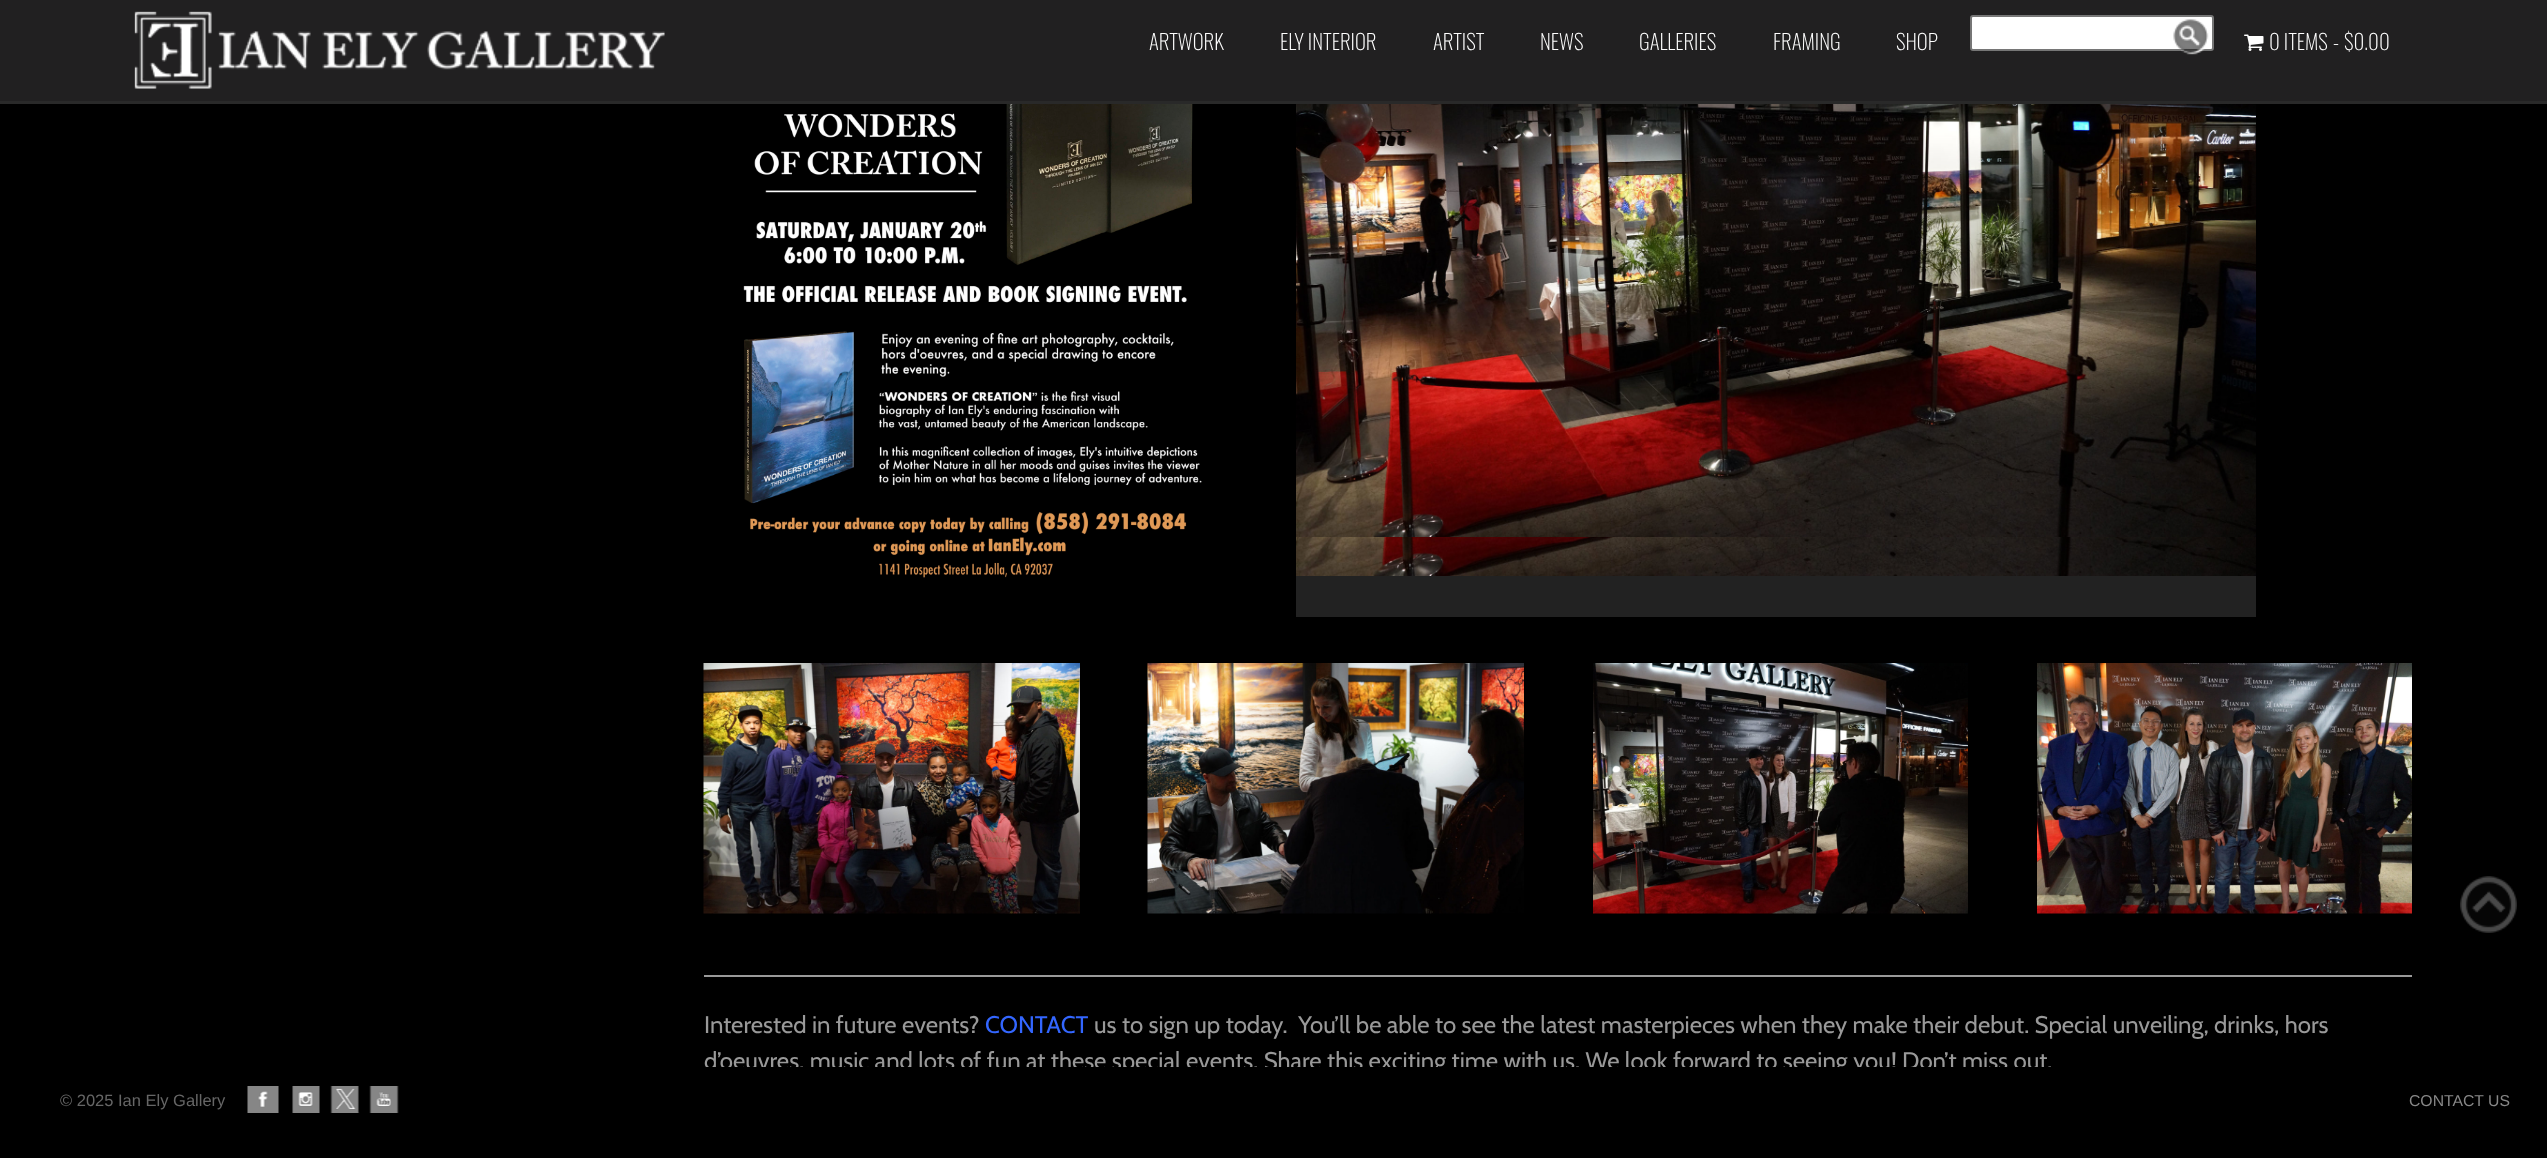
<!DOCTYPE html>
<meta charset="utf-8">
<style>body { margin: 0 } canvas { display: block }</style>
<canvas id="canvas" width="2547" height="1158"></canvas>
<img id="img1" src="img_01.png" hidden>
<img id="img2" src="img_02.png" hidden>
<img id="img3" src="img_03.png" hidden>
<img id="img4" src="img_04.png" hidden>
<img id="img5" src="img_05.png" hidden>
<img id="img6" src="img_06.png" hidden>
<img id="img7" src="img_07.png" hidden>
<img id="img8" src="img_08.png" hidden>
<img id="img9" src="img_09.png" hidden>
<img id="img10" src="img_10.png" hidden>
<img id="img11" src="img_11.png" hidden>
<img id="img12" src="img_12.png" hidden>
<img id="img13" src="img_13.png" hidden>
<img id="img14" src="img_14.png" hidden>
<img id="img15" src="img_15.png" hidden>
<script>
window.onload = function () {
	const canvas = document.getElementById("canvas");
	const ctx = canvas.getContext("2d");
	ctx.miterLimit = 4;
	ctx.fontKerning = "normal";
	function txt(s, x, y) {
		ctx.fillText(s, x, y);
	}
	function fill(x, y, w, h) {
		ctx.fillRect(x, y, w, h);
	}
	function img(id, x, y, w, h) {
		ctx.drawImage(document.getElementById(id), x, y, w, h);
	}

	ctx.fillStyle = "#000000";
	fill(0, 0, 2547, 1158);
	ctx.fillStyle = "#212021";
	fill(0, 0, 2547, 101);
	ctx.fillStyle = "#292929";
	fill(0, 101, 2547, 3);
	img("img1", 134, 11, 531, 78);
	ctx.fillStyle = "#FFFFFF";
	ctx.beginPath();
	ctx.roundRect(1971, 16, 242, 34, 2);
	ctx.fill();
	ctx.strokeStyle = "#767676";
	ctx.lineWidth = 2;
	ctx.stroke();
	img("img2", 2173, 19, 36, 36);
	img("img3", 2244, 34, 20, 17);
	img("img4", 743, 104, 459, 474);
	ctx.fillStyle = "#222222";
	fill(1296, 576, 960, 41);
	img("img5", 1296, 104, 960, 433);
	img("img6", 1296, 537, 960, 39);
	img("img7", 703, 663, 377, 251);
	img("img8", 1147, 663, 377, 251);
	img("img9", 1593, 663, 375, 251);
	img("img10", 2037, 663, 375, 251);
	ctx.fillStyle = "#999999";
	fill(704, 975, 1708, 2);
	img("img11", 247, 1086, 32, 27);
	img("img12", 292, 1086, 28, 27);
	img("img13", 330, 1086, 30, 27);
	img("img14", 369, 1086, 30, 27);
	img("img15", 2460, 876, 57, 57);
	ctx.font = "200 21px Oswald";
	ctx.fillStyle = "#FFFFFF";
	txt("ARTWORK", 1149, 50);
	txt("ELY INTERIOR", 1280, 50);
	txt("ARTIST", 1433, 50);
	txt("NEWS", 1540, 50);
	txt("GALLERIES", 1639, 50);
	txt("FRAMING", 1773, 50);
	txt("SHOP", 1896, 50);
	txt("0 ITEMS", 2269, 50);
	txt("-", 2333, 50);
	txt("$0.00", 2344, 50);
	ctx.font = "24px Cabin";
	ctx.fillStyle = "#999999";
	txt("Interested in future events?", 704, 1033);
	ctx.fillStyle = "#3366FF";
	txt("CONTACT", 985, 1033);
	ctx.fillStyle = "#999999";
	txt("us to sign up today.  You’ll be able to see the latest masterpieces when they make their debut. Special unveiling, drinks, hors", 1094, 1033);
	txt("d’oeuvres, music and lots of fun at these special events. Share this exciting time with us. We look forward to seeing you! Don’t miss out.", 704, 1069);
	ctx.fillStyle = "#000000";
	fill(706, 1067, 1346, 8);
	ctx.font = "16.5px Liberation Sans";
	ctx.fillStyle = "#666666";
	txt("© 2025 Ian Ely Gallery", 60, 1106);
	ctx.font = "15.75px Liberation Sans";
	ctx.fillStyle = "#888888";
	txt("CONTACT US", 2409, 1106);
};
</script>
